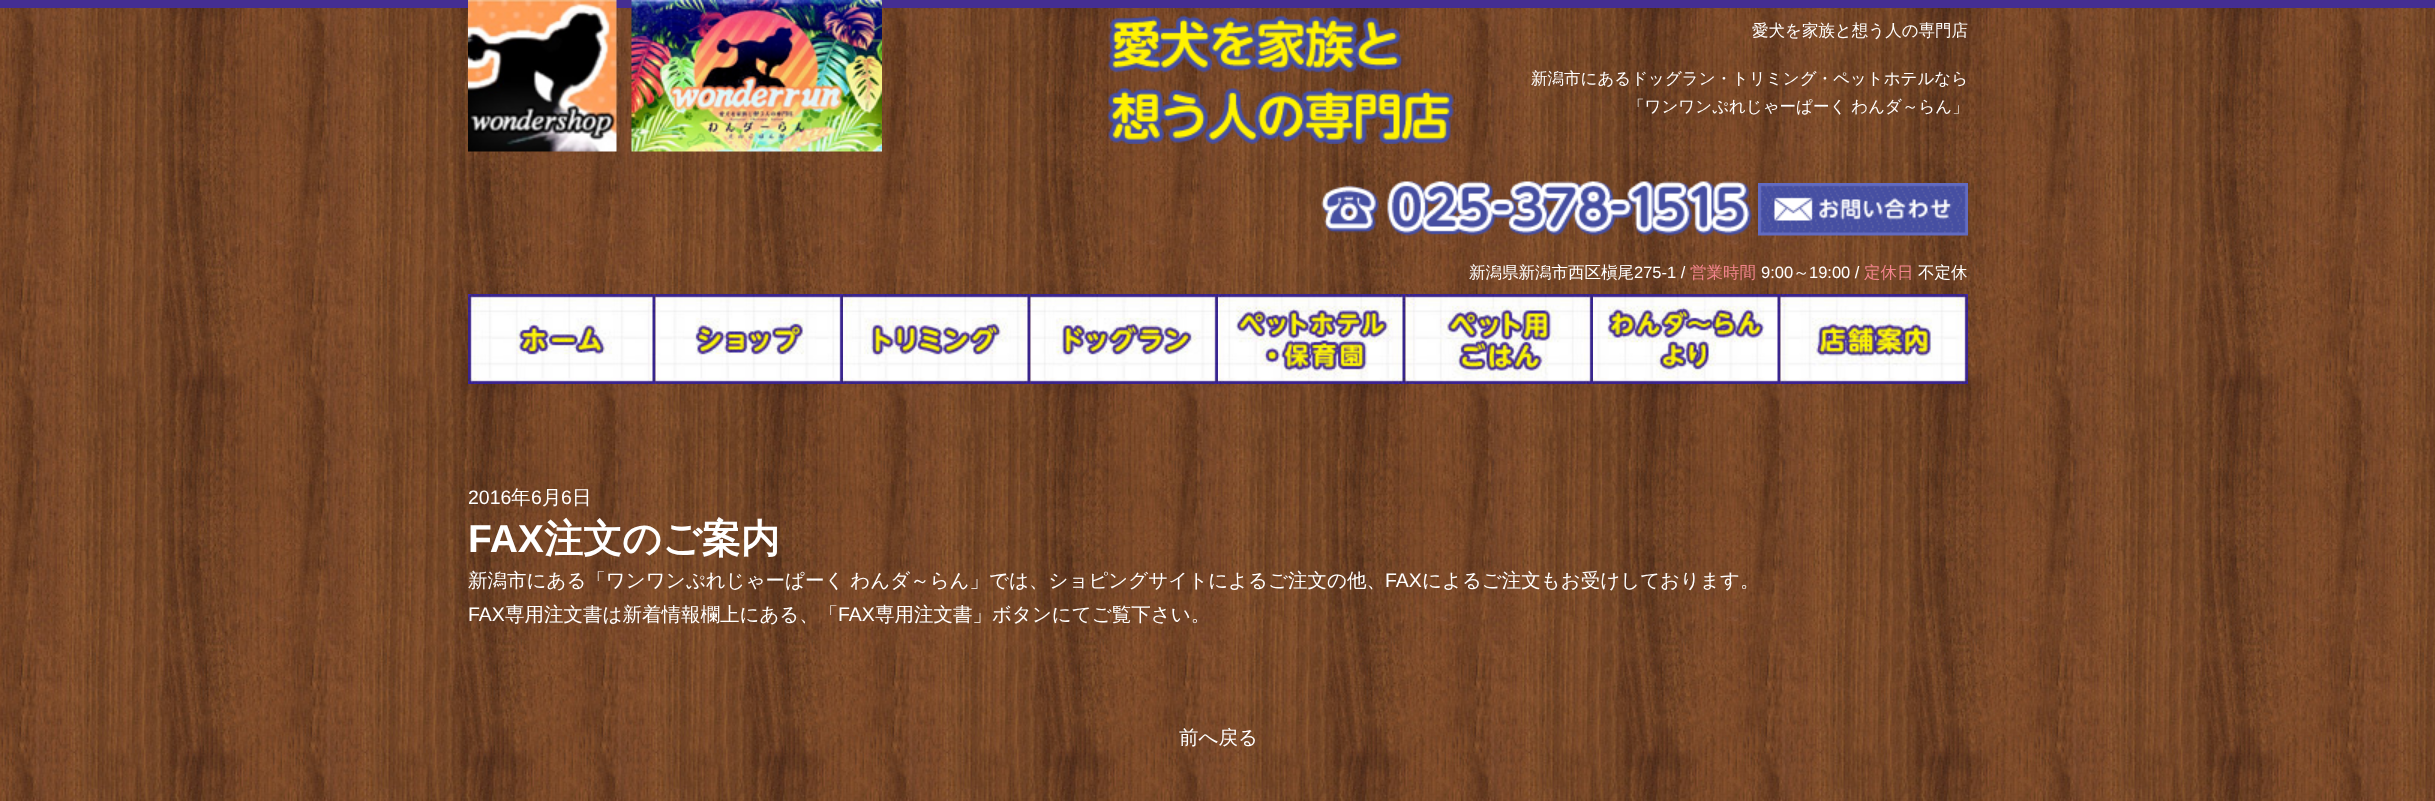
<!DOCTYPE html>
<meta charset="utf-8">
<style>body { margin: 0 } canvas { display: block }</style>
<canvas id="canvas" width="2435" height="801"></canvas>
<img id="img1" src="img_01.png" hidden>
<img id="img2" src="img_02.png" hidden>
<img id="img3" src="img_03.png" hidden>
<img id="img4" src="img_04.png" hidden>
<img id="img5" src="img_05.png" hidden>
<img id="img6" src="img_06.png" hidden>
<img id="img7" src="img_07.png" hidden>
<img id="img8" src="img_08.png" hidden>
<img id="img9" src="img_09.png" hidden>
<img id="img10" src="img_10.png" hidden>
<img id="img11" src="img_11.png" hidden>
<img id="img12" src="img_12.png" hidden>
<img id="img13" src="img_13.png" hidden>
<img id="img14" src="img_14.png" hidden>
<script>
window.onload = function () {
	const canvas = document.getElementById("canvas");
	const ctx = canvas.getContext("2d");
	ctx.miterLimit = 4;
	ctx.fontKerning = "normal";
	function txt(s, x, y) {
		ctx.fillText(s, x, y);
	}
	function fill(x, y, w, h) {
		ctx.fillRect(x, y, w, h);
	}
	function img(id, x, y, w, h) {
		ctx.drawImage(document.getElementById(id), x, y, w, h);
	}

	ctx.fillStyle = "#FFFFFF";
	fill(0, 0, 2435, 801);
	img("img1", 0, 8, 2435, 793);
	ctx.fillStyle = "#442E92";
	fill(0, 0, 2435, 8);
	img("img2", 468, 0, 149, 152);
	img("img3", 631, 0, 251, 152);
	img("img4", 1107, 15, 347, 129);
	img("img5", 1321, 181, 431, 55);
	img("img6", 1758, 183, 210, 53);
	img("img7", 468, 294, 188, 90);
	img("img8", 655, 294, 188, 90);
	img("img9", 843, 294, 188, 90);
	img("img10", 1030, 294, 188, 90);
	img("img11", 1218, 294, 188, 90);
	img("img12", 1405, 294, 188, 90);
	img("img13", 1593, 294, 188, 90);
	img("img14", 1780, 294, 188, 90);
	ctx.font = "500 16.5px WenQuanYi Zen Hei";
	ctx.fillStyle = "#FFFFFF";
	txt("愛犬を家族と想う人の専門店", 1752, 36);
	txt("新潟市にあるドッグラン・トリミング・ペットホテルなら", 1531, 84);
	txt("「ワンワンぷれじゃーぱーく わんダ～らん」", 1628, 112);
	txt("新潟県新潟市西区槇尾", 1469, 278);
	ctx.font = "16.5px Liberation Sans";
	txt("275-1 /", 1634, 278);
	ctx.font = "500 16.5px WenQuanYi Zen Hei";
	ctx.fillStyle = "#F4858E";
	txt("営業時間", 1690, 278);
	ctx.font = "16.5px Liberation Sans";
	ctx.fillStyle = "#FFFFFF";
	txt("9:00", 1761, 278);
	ctx.font = "500 16.5px WenQuanYi Zen Hei";
	txt("～", 1793, 278);
	ctx.font = "16.5px Liberation Sans";
	txt("19:00 /", 1809, 278);
	ctx.font = "500 16.5px WenQuanYi Zen Hei";
	ctx.fillStyle = "#F4858E";
	txt("定休日", 1864, 278);
	ctx.fillStyle = "#FFFFFF";
	txt("不定休", 1918, 278);
	ctx.font = "19.5px Liberation Sans";
	txt("2016", 468, 504);
	ctx.font = "500 19.5px WenQuanYi Zen Hei";
	txt("年", 511, 504);
	ctx.font = "19.5px Liberation Sans";
	txt("6", 531, 504);
	ctx.font = "500 19.5px WenQuanYi Zen Hei";
	txt("月", 542, 504);
	ctx.font = "19.5px Liberation Sans";
	txt("6", 561, 504);
	ctx.font = "500 19.5px WenQuanYi Zen Hei";
	txt("日", 572, 504);
	ctx.font = "bold 39px Liberation Sans";
	txt("FAX", 468, 552);
	ctx.font = "bold 39px WenQuanYi Zen Hei";
	txt("注文のご案内", 544, 552);
	ctx.font = "500 19.5px WenQuanYi Zen Hei";
	txt("新潟市にある「ワンワンぷれじゃーぱーく わんダ～らん」では、ショピングサイトによるご注文の他、", 468, 587);
	ctx.font = "19.5px Liberation Sans";
	txt("FAX", 1385, 587);
	ctx.font = "500 19.5px WenQuanYi Zen Hei";
	txt("によるご注文もお受けしております。", 1422, 587);
	ctx.font = "19.5px Liberation Sans";
	txt("FAX", 468, 621);
	ctx.font = "500 19.5px WenQuanYi Zen Hei";
	txt("専用注文書は新着情報欄上にある、「", 505, 621);
	ctx.font = "19.5px Liberation Sans";
	txt("FAX", 838, 621);
	ctx.font = "500 19.5px WenQuanYi Zen Hei";
	txt("専用注文書」ボタンにてご覧下さい。", 875, 621);
	txt("前へ戻る", 1179, 744);
};
</script>
